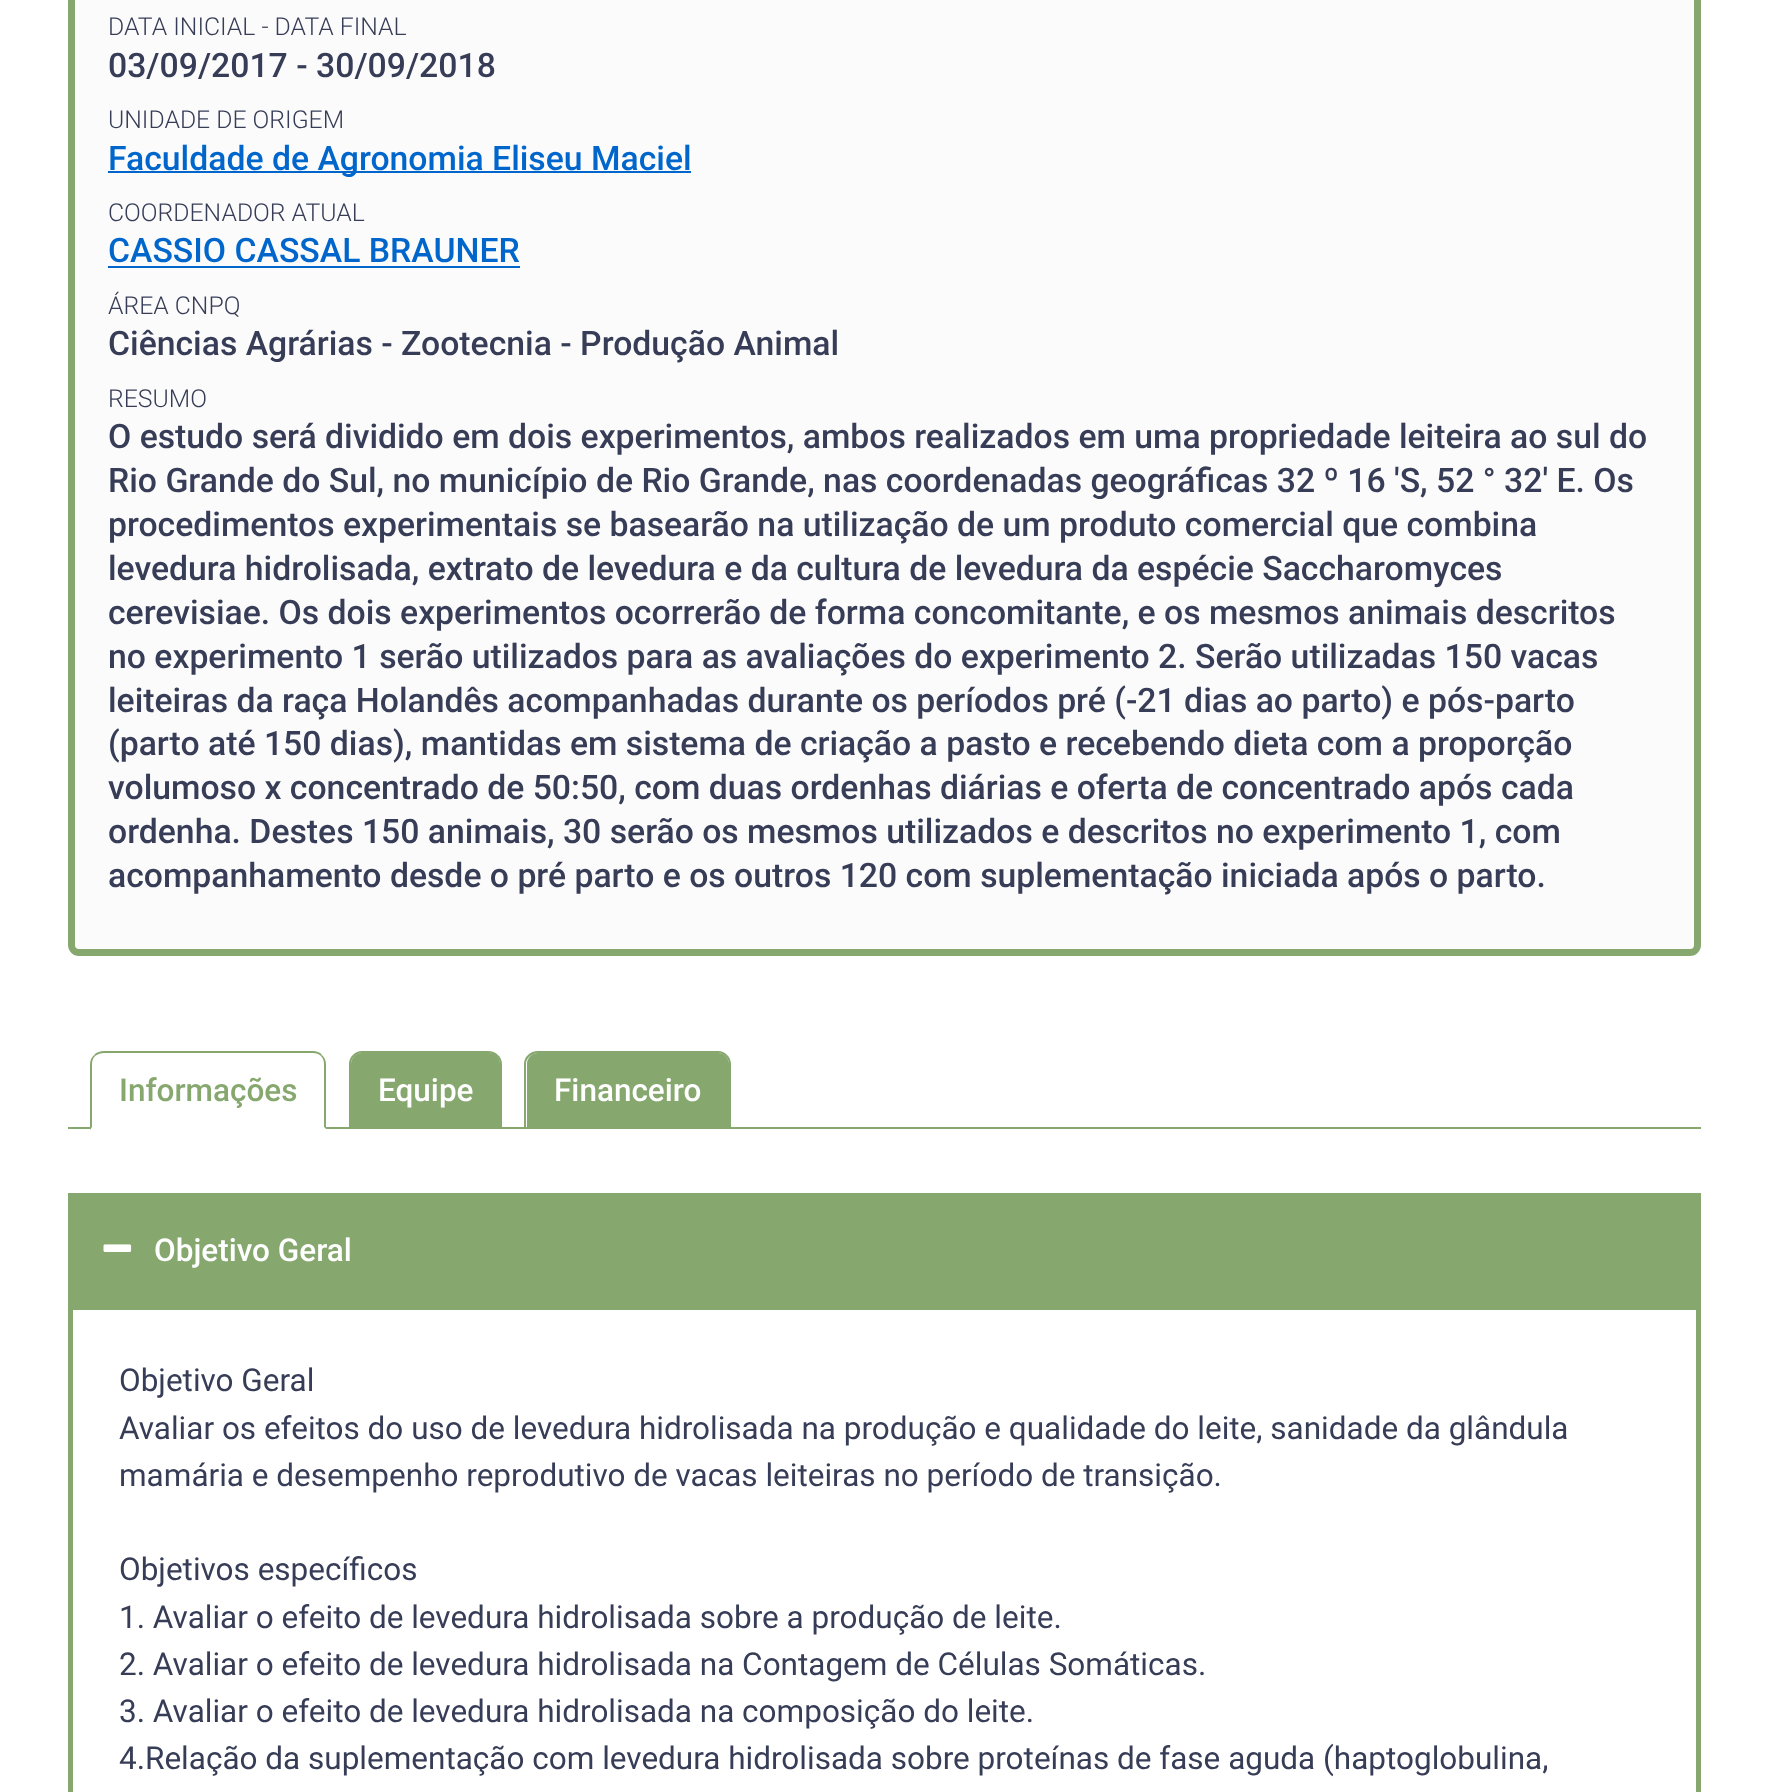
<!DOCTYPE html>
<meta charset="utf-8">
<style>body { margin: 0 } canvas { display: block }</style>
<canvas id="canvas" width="1768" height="1792"></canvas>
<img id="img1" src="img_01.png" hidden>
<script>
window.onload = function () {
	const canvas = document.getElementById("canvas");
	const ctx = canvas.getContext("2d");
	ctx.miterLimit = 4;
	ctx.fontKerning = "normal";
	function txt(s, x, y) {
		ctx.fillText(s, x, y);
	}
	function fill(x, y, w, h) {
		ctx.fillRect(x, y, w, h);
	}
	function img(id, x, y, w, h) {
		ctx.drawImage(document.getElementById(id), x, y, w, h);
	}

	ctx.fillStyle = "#FFFFFF";
	fill(0, 0, 1768, 1792);
	ctx.fillStyle = "#FBFBFB";
	ctx.beginPath();
	ctx.roundRect(71.5, -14.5, 1626, 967, 7.5);
	ctx.fill();
	ctx.strokeStyle = "#86A86F";
	ctx.lineWidth = 7;
	ctx.stroke();
	ctx.fillStyle = "#0066CC";
	fill(108, 171, 583, 2);
	fill(108, 266, 412, 2);
	ctx.fillStyle = "#86A86F";
	fill(68, 1127, 1633, 2);
	ctx.fillStyle = "#FFFFFF";
	ctx.beginPath();
	ctx.roundRect(90, 1051, 236, 79, [14, 14, 0, 0]);
	ctx.fill();
	ctx.fillStyle = "#86A86F";
	ctx.beginPath();
	ctx.moveTo(104, 1051);
	ctx.bezierCurveTo(100, 1051, 97, 1052, 94, 1055);
	ctx.lineTo(95, 1056);
	ctx.bezierCurveTo(98, 1054, 101, 1053, 104, 1053);
	ctx.lineTo(313, 1053);
	ctx.bezierCurveTo(316, 1053, 319, 1054, 321, 1056);
	ctx.lineTo(322, 1055);
	ctx.bezierCurveTo(320, 1052, 316, 1051, 313, 1051);
	ctx.closePath();
	ctx.fill();
	ctx.beginPath();
	ctx.moveTo(326, 1129);
	ctx.lineTo(326, 1064);
	ctx.bezierCurveTo(326, 1060, 324, 1057, 322, 1055);
	ctx.lineTo(321, 1056);
	ctx.bezierCurveTo(323, 1058, 324, 1061, 324, 1064);
	ctx.lineTo(324, 1127);
	ctx.closePath();
	ctx.fill();
	ctx.fillStyle = "#FFFFFF";
	ctx.beginPath();
	ctx.moveTo(326, 1130);
	ctx.lineTo(90, 1130);
	ctx.lineTo(92, 1127);
	ctx.lineTo(324, 1127);
	ctx.closePath();
	ctx.fill();
	ctx.fillStyle = "#86A86F";
	ctx.beginPath();
	ctx.moveTo(90, 1130);
	ctx.lineTo(92, 1127);
	ctx.lineTo(92, 1064);
	ctx.bezierCurveTo(92, 1061, 93, 1058, 95, 1056);
	ctx.lineTo(94, 1055);
	ctx.bezierCurveTo(92, 1057, 90, 1060, 90, 1064);
	ctx.closePath();
	ctx.fill();
	ctx.beginPath();
	ctx.roundRect(351, 1053, 149, 74, [11, 11, 0, 0]);
	ctx.fill();
	ctx.beginPath();
	ctx.moveTo(362, 1051);
	ctx.lineTo(488, 1051);
	ctx.bezierCurveTo(496, 1051, 502, 1057, 502, 1064);
	ctx.lineTo(502, 1127);
	ctx.lineTo(349, 1127);
	ctx.lineTo(349, 1064);
	ctx.bezierCurveTo(349, 1057, 355, 1051, 362, 1051);
	ctx.closePath();
	ctx.moveTo(362, 1053);
	ctx.lineTo(488, 1053);
	ctx.bezierCurveTo(494, 1053, 500, 1058, 500, 1064);
	ctx.lineTo(500, 1127);
	ctx.lineTo(351, 1127);
	ctx.lineTo(351, 1064);
	ctx.bezierCurveTo(351, 1058, 356, 1053, 362, 1053);
	ctx.closePath();
	ctx.fill("evenodd");
	ctx.beginPath();
	ctx.roundRect(527, 1053, 202, 74, [11, 11, 0, 0]);
	ctx.fill();
	ctx.beginPath();
	ctx.moveTo(538, 1051);
	ctx.lineTo(718, 1051);
	ctx.bezierCurveTo(725, 1051, 731, 1057, 731, 1064);
	ctx.lineTo(731, 1127);
	ctx.lineTo(524, 1127);
	ctx.lineTo(524, 1064);
	ctx.bezierCurveTo(524, 1057, 530, 1051, 538, 1051);
	ctx.closePath();
	ctx.moveTo(538, 1053);
	ctx.lineTo(718, 1053);
	ctx.bezierCurveTo(724, 1053, 729, 1058, 729, 1064);
	ctx.lineTo(729, 1127);
	ctx.lineTo(526, 1127);
	ctx.lineTo(526, 1064);
	ctx.bezierCurveTo(526, 1058, 532, 1053, 538, 1053);
	ctx.closePath();
	ctx.fill("evenodd");
	fill(68, 1193, 1633, 112);
	img("img1", 103, 1244, 29, 8);
	ctx.lineWidth = 5;
	ctx.strokeRect(70.5, 1307.5, 1628, 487);
	ctx.font = "300 24.75px Roboto";
	ctx.fillStyle = "#373D57";
	txt("DATA INICIAL - DATA FINAL", 108, 35);
	ctx.font = "500 33.75px Roboto";
	txt("03/09/2017 - 30/09/2018", 108, 77);
	ctx.font = "300 24.75px Roboto";
	txt("UNIDADE DE ORIGEM", 108, 128);
	ctx.font = "500 33.75px Roboto";
	ctx.fillStyle = "#0066CC";
	txt("Faculdade de Agronomia Eliseu Maciel", 108, 170);
	ctx.font = "300 24.75px Roboto";
	ctx.fillStyle = "#373D57";
	txt("COORDENADOR ATUAL", 108, 221);
	ctx.font = "500 33.75px Roboto";
	ctx.fillStyle = "#0066CC";
	txt("CASSIO CASSAL BRAUNER", 108, 262);
	ctx.font = "300 24.75px Roboto";
	ctx.fillStyle = "#373D57";
	txt("ÁREA CNPQ", 108, 314);
	ctx.font = "500 33.75px Roboto";
	txt("Ciências Agrárias - Zootecnia - Produção Animal", 108, 355);
	ctx.font = "300 24.75px Roboto";
	txt("RESUMO", 108, 407);
	ctx.font = "500 33.75px Roboto";
	txt("O estudo será dividido em dois experimentos, ambos realizados em uma propriedade leiteira ao sul do", 108, 448);
	txt("Rio Grande do Sul, no município de Rio Grande, nas coordenadas geográficas 32 º 16 'S, 52 ° 32' E. Os", 108, 492);
	txt("procedimentos experimentais se basearão na utilização de um produto comercial que combina", 108, 536);
	txt("levedura hidrolisada, extrato de levedura e da cultura de levedura da espécie Saccharomyces", 108, 580);
	txt("cerevisiae. Os dois experimentos ocorrerão de forma concomitante, e os mesmos animais descritos", 108, 624);
	txt("no experimento 1 serão utilizados para as avaliações do experimento 2. Serão utilizadas 150 vacas", 108, 668);
	txt("leiteiras da raça Holandês acompanhadas durante os períodos pré (-21 dias ao parto) e pós-parto", 108, 712);
	txt("(parto até 150 dias), mantidas em sistema de criação a pasto e recebendo dieta com a proporção", 108, 755);
	txt("volumoso x concentrado de 50:50, com duas ordenhas diárias e oferta de concentrado após cada", 108, 799);
	txt("ordenha. Destes 150 animais, 30 serão os mesmos utilizados e descritos no experimento 1, com", 108, 843);
	txt("acompanhamento desde o pré parto e os outros 120 com suplementação iniciada após o parto.", 108, 887);
	ctx.font = "500 31.5px Roboto";
	ctx.fillStyle = "#86A86F";
	txt("Informações", 119, 1101);
	ctx.fillStyle = "#FFFFFF";
	txt("Equipe", 378, 1101);
	txt("Financeiro", 554, 1101);
	txt("Objetivo Geral", 154, 1261);
	ctx.font = "31.5px Roboto";
	ctx.fillStyle = "#373D57";
	txt("Objetivo Geral", 119, 1391);
	txt("Avaliar os efeitos do uso de levedura hidrolisada na produção e qualidade do leite, sanidade da glândula", 119, 1439);
	txt("mamária e desempenho reprodutivo de vacas leiteiras no período de transição.", 119, 1486);
	txt("Objetivos específicos", 119, 1580);
	txt("1. Avaliar o efeito de levedura hidrolisada sobre a produção de leite.", 119, 1628);
	txt("2. Avaliar o efeito de levedura hidrolisada na Contagem de Células Somáticas.", 119, 1675);
	txt("3. Avaliar o efeito de levedura hidrolisada na composição do leite.", 119, 1722);
	txt("4.Relação da suplementação com levedura hidrolisada sobre proteínas de fase aguda (haptoglobulina,", 119, 1769);
};
</script>
